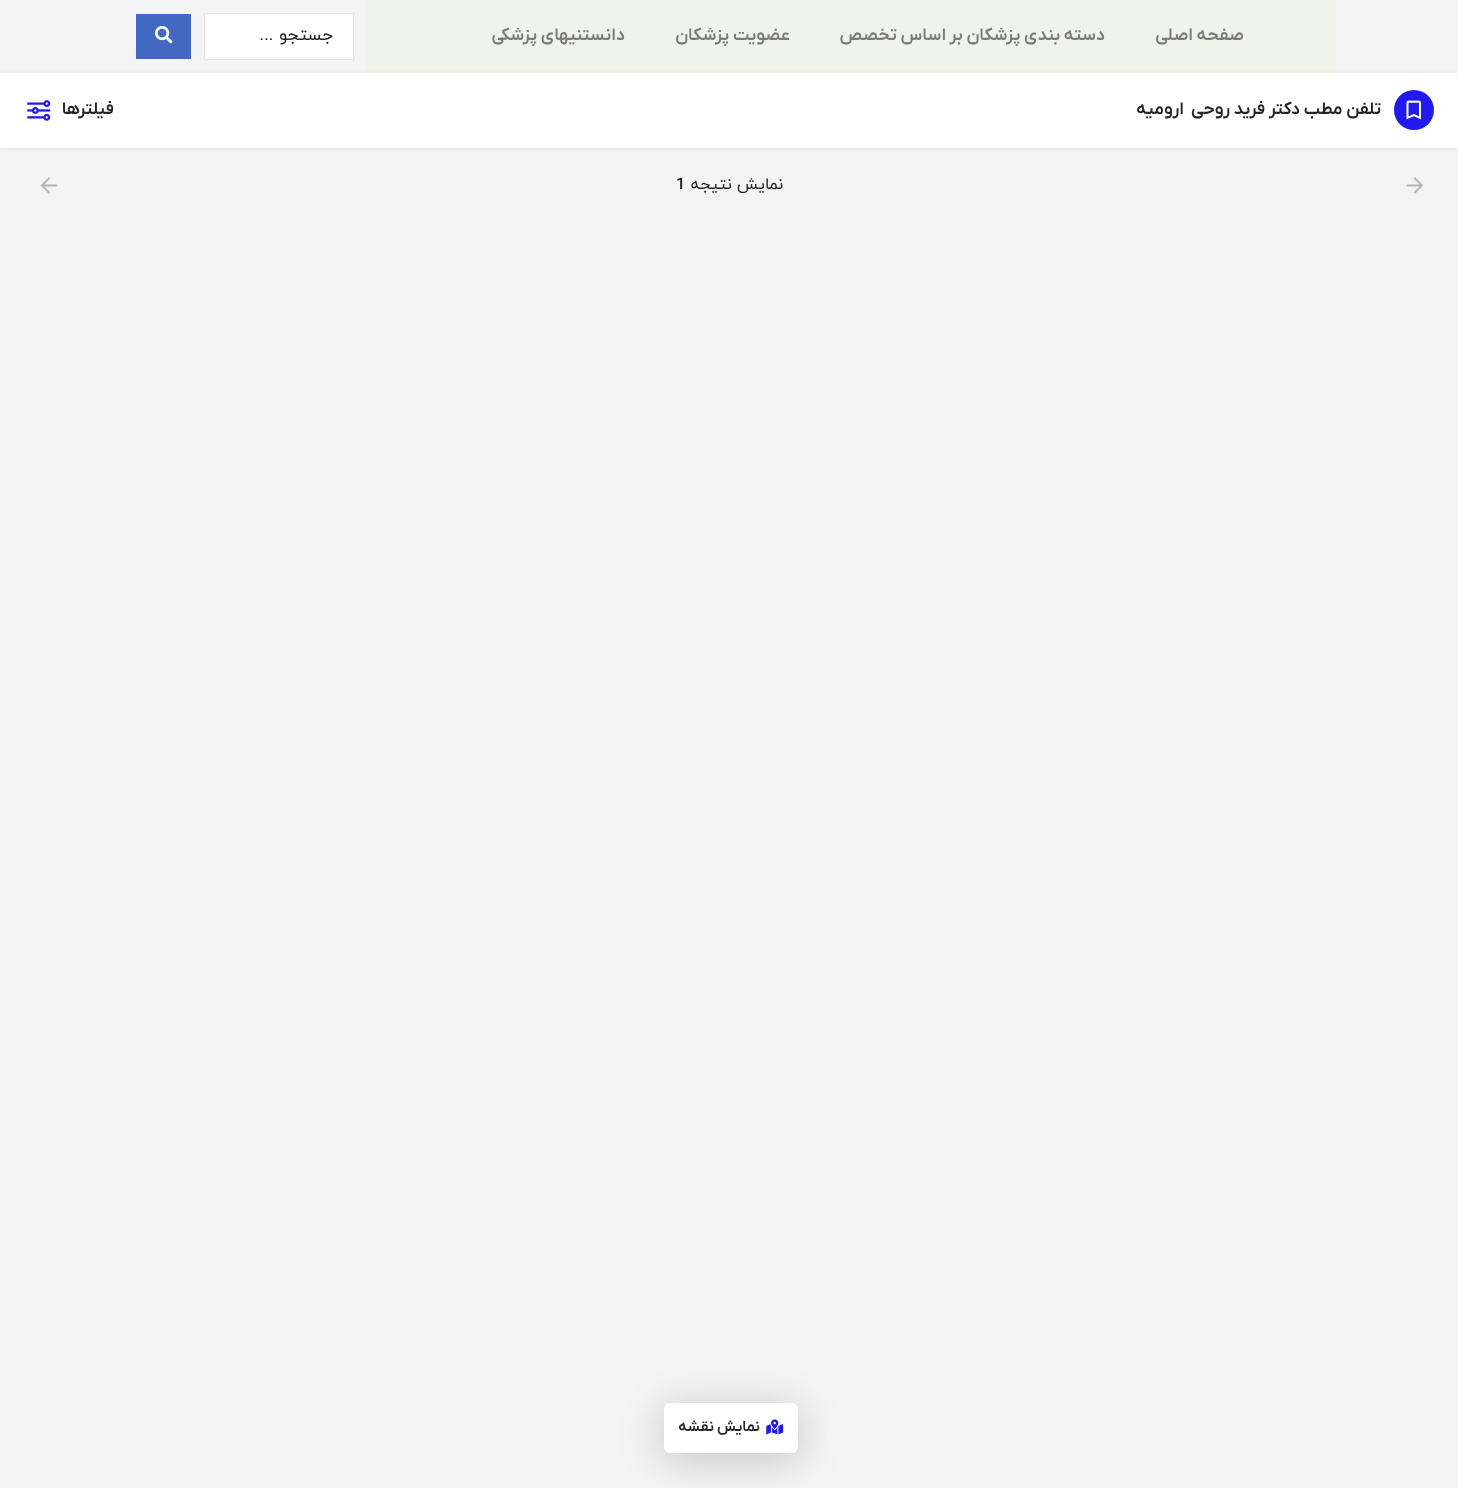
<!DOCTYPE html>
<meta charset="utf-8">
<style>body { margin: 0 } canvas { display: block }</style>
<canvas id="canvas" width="1458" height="1488"></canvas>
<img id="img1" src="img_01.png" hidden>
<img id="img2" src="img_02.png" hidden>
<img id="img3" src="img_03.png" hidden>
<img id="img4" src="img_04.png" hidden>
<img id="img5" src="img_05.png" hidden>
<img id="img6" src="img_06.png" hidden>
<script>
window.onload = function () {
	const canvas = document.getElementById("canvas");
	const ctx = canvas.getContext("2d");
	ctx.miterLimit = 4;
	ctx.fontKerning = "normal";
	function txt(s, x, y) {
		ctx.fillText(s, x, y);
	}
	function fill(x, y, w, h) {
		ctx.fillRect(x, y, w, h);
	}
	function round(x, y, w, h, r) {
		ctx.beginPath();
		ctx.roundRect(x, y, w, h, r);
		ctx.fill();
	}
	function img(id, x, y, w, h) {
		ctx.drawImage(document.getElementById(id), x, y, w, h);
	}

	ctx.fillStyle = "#F4F4F4";
	fill(0, 0, 1458, 1488);
	ctx.fillStyle = "#EFF3E9";
	fill(366, 0, 970, 73);
	ctx.fillStyle = "#FFFFFF";
	ctx.beginPath();
	ctx.rect(204.5, 13.5, 149, 46);
	ctx.fill();
	ctx.strokeStyle = "#E1E5EB";
	ctx.stroke();
	ctx.fillStyle = "#4268C1";
	fill(136, 14, 55, 45);
	img("img1", 155, 25, 18, 19);
	ctx.fillStyle = "rgba(0, 0, 0, 0.07)";
	ctx.filter = "blur(2.5px)";
	ctx.beginPath();
	ctx.rect(0, 74, 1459, 75);
	ctx.fill();
	ctx.filter = "none";
	ctx.fillStyle = "#FFFFFF";
	fill(0, 73, 1458, 75);
	ctx.fillStyle = "#211AEF";
	ctx.beginPath();
	ctx.arc(1414, 110, 20, 0, Math.PI * 2);
	ctx.fill();
	img("img2", 1406, 100, 16, 20);
	img("img3", 27, 100, 24, 21);
	img("img4", 1406, 177, 18, 17);
	img("img5", 40, 177, 18, 17);
	ctx.fillStyle = "rgba(0, 0, 0, 0.2)";
	ctx.filter = "blur(20.5px)";
	ctx.beginPath();
	ctx.roundRect(664, 1409, 134, 50, 6);
	ctx.fill();
	ctx.filter = "none";
	ctx.fillStyle = "#FFFFFF";
	round(664, 1403, 134, 50, 6);
	img("img6", 766, 1419, 18, 16);
	ctx.direction = "rtl";
	ctx.font = "600 17.5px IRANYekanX";
	ctx.fillStyle = "#7A7A7A";
	txt("صفحه اصلی", 1244, 40);
	txt("دسته بندی پزشکان بر اساس تخصص", 1105, 40);
	txt("عضویت پزشکان", 790, 40);
	txt("دانستنیهای پزشکی", 625, 40);
	ctx.font = "17.5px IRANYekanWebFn";
	ctx.fillStyle = "#242429";
	txt("جستجو ...", 333, 40);
	ctx.font = "600 17.5px IRANYekanX";
	txt("تلفن مطب دکتر فرید روحی  ارومیه", 1381, 114);
	txt("فیلترها", 114, 114);
	ctx.font = "16.25px IRANYekanWebFn";
	txt("نمایش نتیجه", 783, 189);
	ctx.direction = "ltr";
	ctx.font = "600 16.25px IRANYekanX";
	txt("1", 676, 189);
	ctx.direction = "rtl";
	ctx.font = "600 15px IRANYekanX";
	txt("نمایش نقشه", 760, 1431);
};
</script>
